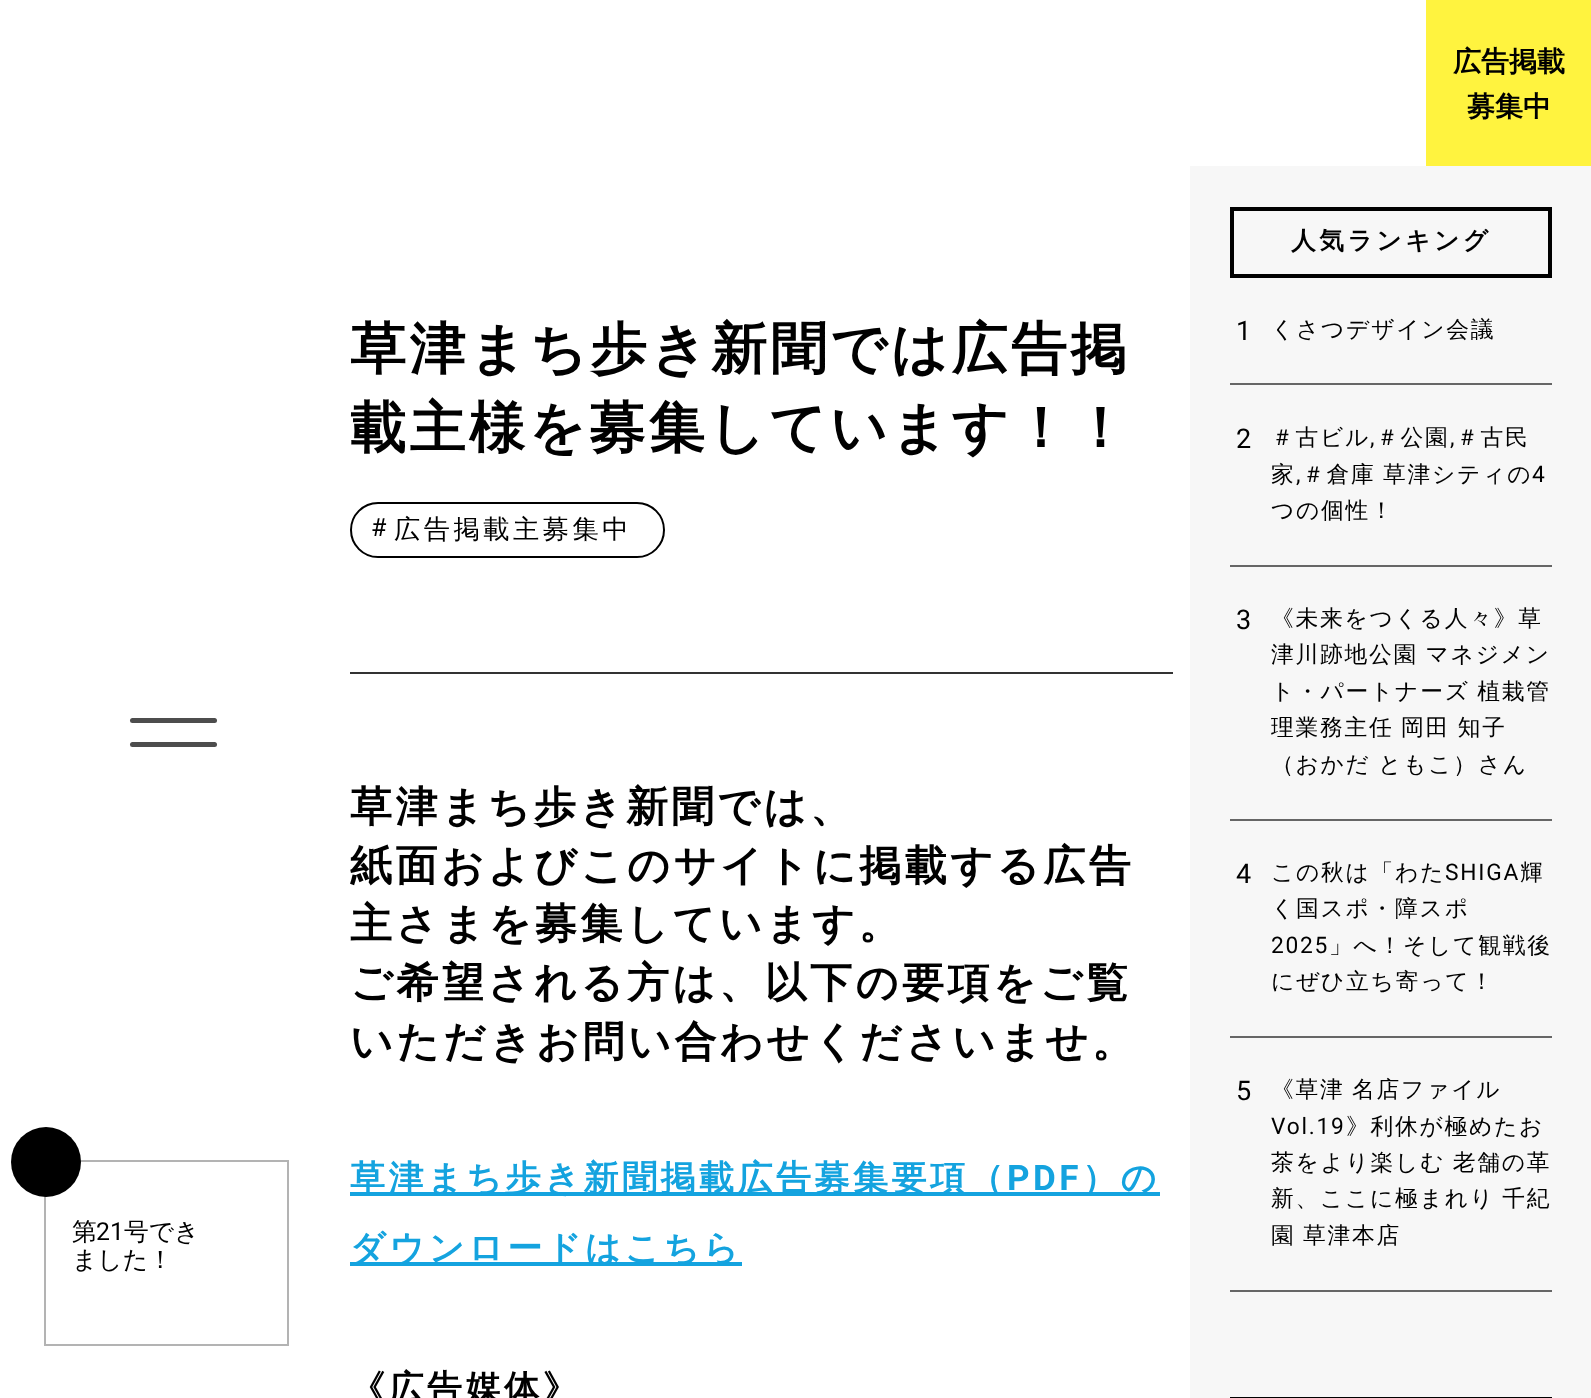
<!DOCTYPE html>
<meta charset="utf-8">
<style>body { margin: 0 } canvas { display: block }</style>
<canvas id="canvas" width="1591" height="1398"></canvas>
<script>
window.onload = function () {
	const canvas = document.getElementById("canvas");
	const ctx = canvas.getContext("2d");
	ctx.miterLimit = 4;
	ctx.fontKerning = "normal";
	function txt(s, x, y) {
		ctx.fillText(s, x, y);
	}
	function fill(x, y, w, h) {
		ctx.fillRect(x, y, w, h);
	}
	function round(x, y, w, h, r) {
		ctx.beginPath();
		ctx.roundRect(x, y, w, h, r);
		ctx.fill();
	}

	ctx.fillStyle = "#FFFFFF";
	fill(0, 0, 1591, 1398);
	ctx.fillStyle = "#FFF33F";
	fill(1426, 0, 165, 166);
	ctx.fillStyle = "#4D4D4D";
	round(130, 718, 87, 5, 2.5);
	round(130, 742, 87, 5, 2.5);
	ctx.strokeStyle = "#B3B3B3";
	ctx.lineWidth = 2;
	ctx.strokeRect(45, 1161, 243, 184);
	ctx.fillStyle = "#000000";
	ctx.beginPath();
	ctx.arc(46, 1162, 35, 0, Math.PI * 2);
	ctx.fill();
	ctx.fillStyle = "#333333";
	fill(350, 672, 823, 2);
	ctx.beginPath();
	ctx.roundRect(351, 503, 313, 54, 27);
	ctx.strokeStyle = "#000000";
	ctx.stroke();
	ctx.fillStyle = "#14A3DF";
	fill(350, 1192, 810, 4);
	fill(350, 1262, 392, 4);
	ctx.fillStyle = "#F7F7F7";
	fill(1190, 166, 401, 1232);
	ctx.lineWidth = 4;
	ctx.strokeRect(1232, 209, 318, 67);
	ctx.fillStyle = "#666666";
	fill(1230, 383, 322, 2);
	fill(1230, 565, 322, 2);
	fill(1230, 819, 322, 2);
	fill(1230, 1036, 322, 2);
	fill(1230, 1290, 322, 2);
	ctx.strokeRect(1232, 1399, 318, 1);
	ctx.font = "bold 28px WenQuanYi Zen Hei";
	ctx.fillStyle = "#000000";
	txt("広告掲載", 1453, 71);
	txt("募集中", 1467, 116);
	ctx.font = "500 24.75px WenQuanYi Zen Hei";
	txt("第", 72, 1240);
	ctx.font = "24.75px Roboto";
	txt("21", 96, 1240);
	ctx.font = "500 24.75px WenQuanYi Zen Hei";
	txt("号でき", 124, 1240);
	txt("ました！", 72, 1268);
	ctx.letterSpacing = "3.5px";
	ctx.font = "bold 56px WenQuanYi Zen Hei";
	txt("草津まち歩き新聞では広告掲", 350, 368);
	txt("載主様を募集しています！！", 350, 447);
	ctx.font = "25px Roboto";
	txt("#", 371, 536);
	ctx.font = "500 26.25px WenQuanYi Zen Hei";
	txt("広告掲載主募集中", 394, 538);
	ctx.font = "bold 42px WenQuanYi Zen Hei";
	txt("草津まち歩き新聞では、", 350, 821);
	txt("紙面およびこのサイトに掲載する広告", 350, 880);
	txt("主さまを募集しています。", 350, 938);
	txt("ご希望される方は、以下の要項をご覧", 350, 997);
	txt("いただきお問い合わせくださいませ。", 350, 1056);
	ctx.font = "bold 35px WenQuanYi Zen Hei";
	ctx.fillStyle = "#14A3DF";
	txt("草津まち歩き新聞掲載広告募集要項（", 350, 1190);
	ctx.font = "bold 35px Roboto";
	txt("PDF", 1007, 1190);
	ctx.font = "bold 35px WenQuanYi Zen Hei";
	txt("）の", 1082, 1190);
	txt("ダウンロードはこちら", 350, 1260);
	ctx.fillStyle = "#000000";
	txt("《広告媒体》", 350, 1400);
	ctx.font = "bold 24.75px WenQuanYi Zen Hei";
	txt("人気ランキング", 1291, 249);
	ctx.letterSpacing = "1.75px";
	ctx.font = "27px Roboto";
	txt("1", 1236, 340);
	ctx.font = "500 22.75px WenQuanYi Zen Hei";
	txt("くさつデザイン会議", 1271, 337);
	ctx.font = "27px Roboto";
	txt("2", 1236, 448);
	ctx.font = "500 22.75px WenQuanYi Zen Hei";
	txt("＃古ビル", 1271, 445);
	ctx.font = "22.75px Roboto";
	txt(",", 1370, 445);
	ctx.font = "500 22.75px WenQuanYi Zen Hei";
	txt("＃公園", 1376, 445);
	ctx.font = "22.75px Roboto";
	txt(",", 1450, 445);
	ctx.font = "500 22.75px WenQuanYi Zen Hei";
	txt("＃古民", 1456, 445);
	txt("家", 1271, 482);
	ctx.font = "22.75px Roboto";
	txt(",", 1296, 482);
	ctx.wordSpacing = "-1px";
	ctx.font = "500 22.75px WenQuanYi Zen Hei";
	txt("＃倉庫 草津シティの", 1302, 482);
	ctx.wordSpacing = "0px";
	ctx.font = "22.75px Roboto";
	txt("4", 1532, 482);
	ctx.font = "500 22.75px WenQuanYi Zen Hei";
	txt("つの個性！", 1271, 518);
	ctx.font = "27px Roboto";
	txt("3", 1236, 629);
	ctx.font = "500 22.75px WenQuanYi Zen Hei";
	txt("《未来をつくる人々》草", 1271, 626);
	ctx.wordSpacing = "-1px";
	txt("津川跡地公園 マネジメン", 1271, 662);
	txt("ト・パートナーズ 植栽管", 1271, 699);
	txt("理業務主任 岡田 知子", 1271, 735);
	txt("（おかだ ともこ）さん", 1271, 772);
	ctx.wordSpacing = "0px";
	ctx.font = "27px Roboto";
	txt("4", 1236, 883);
	ctx.font = "500 22.75px WenQuanYi Zen Hei";
	txt("この秋は「わた", 1271, 880);
	ctx.font = "22.75px Roboto";
	txt("SHIGA", 1445, 880);
	ctx.font = "500 22.75px WenQuanYi Zen Hei";
	txt("輝", 1520, 880);
	txt("く国スポ・障スポ", 1271, 916);
	ctx.font = "22.75px Roboto";
	txt("2025", 1271, 953);
	ctx.font = "500 22.75px WenQuanYi Zen Hei";
	txt("」へ！そして観戦後", 1329, 953);
	txt("にぜひ立ち寄って！", 1271, 989);
	ctx.font = "27px Roboto";
	txt("5", 1236, 1100);
	ctx.wordSpacing = "-1px";
	ctx.font = "500 22.75px WenQuanYi Zen Hei";
	txt("《草津 名店ファイル", 1271, 1097);
	ctx.wordSpacing = "0px";
	ctx.font = "22.75px Roboto";
	txt("Vol.19", 1271, 1134);
	ctx.font = "500 22.75px WenQuanYi Zen Hei";
	txt("》利休が極めたお", 1346, 1134);
	ctx.wordSpacing = "-1px";
	txt("茶をより楽しむ 老舗の革", 1271, 1170);
	txt("新、ここに極まれり 千紀", 1271, 1206);
	txt("園 草津本店", 1271, 1243);
};
</script>
